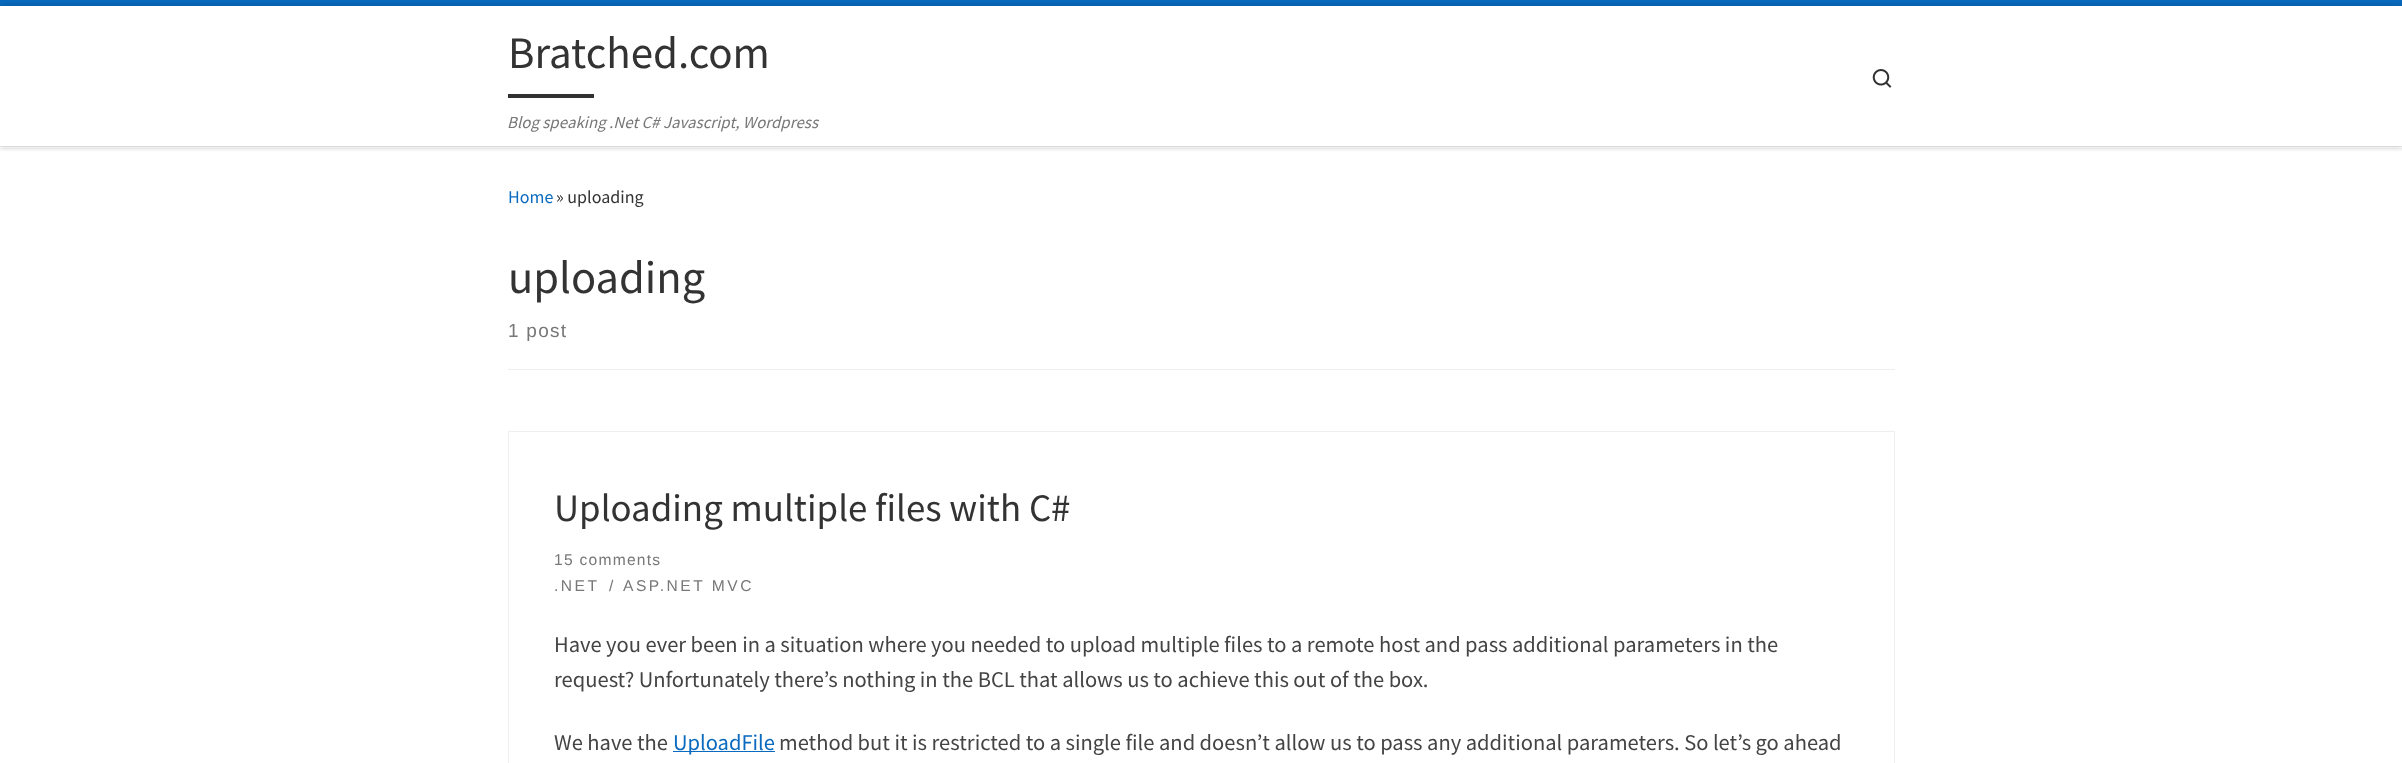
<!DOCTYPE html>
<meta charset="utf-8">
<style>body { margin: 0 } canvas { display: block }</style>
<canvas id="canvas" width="2402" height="763"></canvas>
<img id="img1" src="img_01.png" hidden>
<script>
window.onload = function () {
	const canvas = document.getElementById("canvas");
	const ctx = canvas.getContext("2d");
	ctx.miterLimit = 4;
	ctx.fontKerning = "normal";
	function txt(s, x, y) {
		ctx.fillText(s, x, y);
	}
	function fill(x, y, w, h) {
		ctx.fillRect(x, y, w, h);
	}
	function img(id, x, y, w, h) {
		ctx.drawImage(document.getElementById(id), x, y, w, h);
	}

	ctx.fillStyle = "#FFFFFF";
	fill(0, 0, 2402, 763);
	ctx.fillStyle = "rgba(102, 102, 102, 0.08)";
	ctx.filter = "blur(1px)";
	ctx.beginPath();
	ctx.rect(0, 3, 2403, 147);
	ctx.fill();
	ctx.filter = "none";
	ctx.fillStyle = "#FFFFFF";
	fill(0, 147, 2402, 1);
	ctx.fillStyle = "#096ABF";
	fill(0, 0, 2402, 6);
	ctx.fillStyle = "#ECECEC";
	fill(0, 146, 2402, 1);
	ctx.fillStyle = "rgba(255, 255, 255, 0.15)";
	ctx.beginPath();
	ctx.moveTo(0, 146);
	ctx.lineTo(0, 148);
	ctx.lineTo(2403, 148);
	ctx.lineTo(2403, 8);
	ctx.lineTo(2402, 8);
	ctx.lineTo(2402, 146);
	ctx.closePath();
	ctx.fill();
	ctx.fillStyle = "rgba(0, 0, 0, 0.2)";
	ctx.filter = "blur(3px)";
	ctx.beginPath();
	ctx.rect(0, 6, 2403, 140);
	ctx.fill();
	ctx.filter = "none";
	ctx.fillStyle = "#FFFFFF";
	fill(0, 6, 2402, 140);
	ctx.fillStyle = "#313131";
	fill(508, 94, 86, 4);
	img("img1", 1872, 69, 20, 19);
	ctx.fillStyle = "#ECEEEF";
	fill(508, 369, 1387, 1);
	ctx.strokeStyle = "#EFEFEF";
	ctx.strokeRect(508.5, 431.5, 1386, 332);
	ctx.fillStyle = "#096ABF";
	fill(673, 751, 102, 1);
	ctx.font = "45px Source Sans Pro";
	ctx.fillStyle = "#333333";
	txt("Bratched.com", 508, 68);
	ctx.font = "italic 16.9px Source Sans Pro";
	ctx.fillStyle = "#777777";
	txt("Blog speaking .Net C# Javascript, Wordpress", 507, 128);
	ctx.font = "18px Source Sans Pro";
	ctx.fillStyle = "#096ABF";
	txt("Home", 508, 203);
	ctx.fillStyle = "#333333";
	txt("» uploading", 556, 203);
	ctx.font = "46.5px Source Sans Pro";
	txt("uploading", 508, 293);
	ctx.letterSpacing = "1.25px";
	ctx.font = "19px Liberation Sans";
	ctx.fillStyle = "#777777";
	txt("1 post", 508, 337);
	ctx.letterSpacing = "0px";
	ctx.font = "38.9px Source Sans Pro";
	ctx.fillStyle = "#333333";
	txt("Uploading multiple files with C#", 554, 521);
	ctx.letterSpacing = "1.25px";
	ctx.font = "15.6px Liberation Sans";
	ctx.fillStyle = "#777777";
	txt("15 comments", 554, 565);
	ctx.letterSpacing = "2.5px";
	txt(".NET", 554, 591);
	txt("/", 609, 591);
	txt("ASP.NET MVC", 623, 591);
	ctx.letterSpacing = "0px";
	ctx.font = "22.5px Source Sans Pro";
	ctx.fillStyle = "#444444";
	txt("Have you ever been in a situation where you needed to upload multiple files to a remote host and pass additional parameters in the", 554, 652);
	txt("request? Unfortunately there’s nothing in the BCL that allows us to achieve this out of the box.", 554, 687);
	txt("We have the", 554, 750);
	ctx.fillStyle = "#096ABF";
	txt("UploadFile", 673, 750);
	ctx.fillStyle = "#444444";
	txt("method but it is restricted to a single file and doesn’t allow us to pass any additional parameters. So let’s go ahead", 779, 750);
};
</script>
